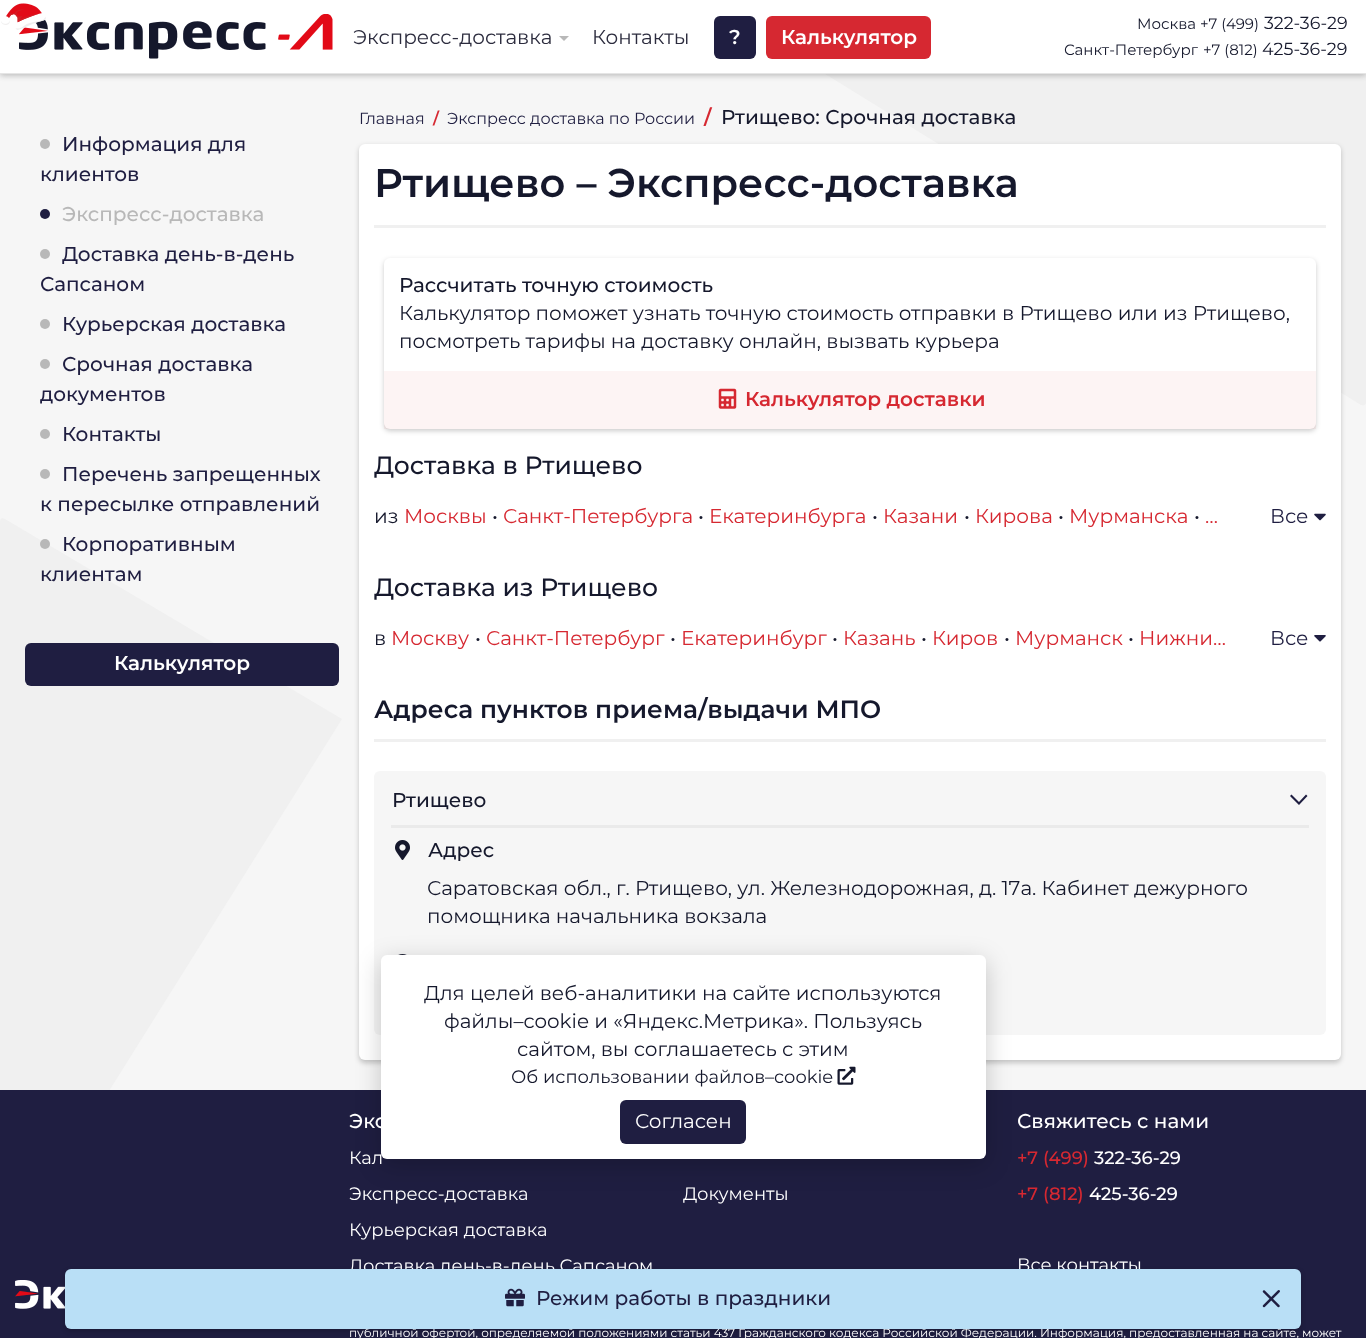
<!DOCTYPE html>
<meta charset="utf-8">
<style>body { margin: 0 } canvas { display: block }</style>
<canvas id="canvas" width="1366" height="1338"></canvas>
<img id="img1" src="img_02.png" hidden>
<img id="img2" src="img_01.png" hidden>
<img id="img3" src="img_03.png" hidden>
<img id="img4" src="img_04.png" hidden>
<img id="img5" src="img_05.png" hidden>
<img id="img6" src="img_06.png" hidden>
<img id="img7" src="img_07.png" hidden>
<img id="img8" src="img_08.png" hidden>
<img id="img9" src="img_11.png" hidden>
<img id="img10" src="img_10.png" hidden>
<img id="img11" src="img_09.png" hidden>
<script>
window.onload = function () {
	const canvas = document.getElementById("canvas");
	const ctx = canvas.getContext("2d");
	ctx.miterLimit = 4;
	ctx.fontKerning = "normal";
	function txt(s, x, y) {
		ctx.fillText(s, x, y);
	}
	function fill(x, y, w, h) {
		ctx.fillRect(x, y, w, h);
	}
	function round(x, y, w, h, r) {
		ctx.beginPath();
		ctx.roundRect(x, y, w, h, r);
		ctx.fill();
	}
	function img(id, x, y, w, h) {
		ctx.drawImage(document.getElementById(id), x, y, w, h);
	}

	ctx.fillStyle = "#1F1E41";
	fill(0, 0, 1366, 1338);
	ctx.fillStyle = "#F6F6F6";
	fill(0, 74, 1366, 1016);
	ctx.fillStyle = "#F0F0F0";
	ctx.beginPath();
	ctx.moveTo(542, -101);
	ctx.lineTo(1366, -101);
	ctx.lineTo(1366, 402);
	ctx.bezierCurveTo(1366, 405, 1364, 406, 1361, 405);
	ctx.closePath();
	ctx.fill();
	ctx.fillStyle = "rgba(0, 0, 0, 0.12)";
	ctx.filter = "blur(3px)";
	ctx.beginPath();
	ctx.rect(0, 1, 1366, 74);
	ctx.fill();
	ctx.filter = "none";
	ctx.fillStyle = "rgba(0, 0, 0, 0.16)";
	ctx.filter = "blur(3px)";
	ctx.beginPath();
	ctx.rect(0, 1, 1366, 74);
	ctx.fill();
	ctx.filter = "none";
	ctx.fillStyle = "#FFFFFF";
	fill(0, 0, 1366, 73);
	ctx.fillStyle = "#E5E5E5";
	fill(0, 73, 1366, 1);
	img("img1", 19, 14, 314, 45);
	img("img2", 1, 3, 45, 27);
	ctx.fillStyle = "#B8B8B8";
	ctx.beginPath();
	ctx.moveTo(559, 36);
	ctx.lineTo(569, 36);
	ctx.lineTo(564, 41);
	ctx.closePath();
	ctx.fill();
	ctx.fillStyle = "#1F1E41";
	round(714, 16, 42, 43, 6);
	ctx.fillStyle = "#D62831";
	round(766, 16, 165, 43, 6);
	ctx.save();
	ctx.beginPath();
	ctx.rect(0, 74, 1366, 1016);
	ctx.clip();
	ctx.fillStyle = "#F0F0F0";
	ctx.beginPath();
	ctx.moveTo(342, 719);
	ctx.lineTo(0, 1265);
	ctx.lineTo(0, 521);
	ctx.bezierCurveTo(0, 519, 2, 517, 5, 519);
	ctx.closePath();
	ctx.fill();
	ctx.restore();
	ctx.fillStyle = "#B8B8B8";
	ctx.beginPath();
	ctx.arc(45, 144, 5, 0, Math.PI * 2);
	ctx.fill();
	ctx.fillStyle = "#1F1E41";
	ctx.beginPath();
	ctx.arc(45, 214, 5, 0, Math.PI * 2);
	ctx.fill();
	ctx.fillStyle = "#B8B8B8";
	ctx.beginPath();
	ctx.arc(45, 254, 5, 0, Math.PI * 2);
	ctx.fill();
	ctx.beginPath();
	ctx.arc(45, 324, 5, 0, Math.PI * 2);
	ctx.fill();
	ctx.beginPath();
	ctx.arc(45, 364, 5, 0, Math.PI * 2);
	ctx.fill();
	ctx.beginPath();
	ctx.arc(45, 434, 5, 0, Math.PI * 2);
	ctx.fill();
	ctx.beginPath();
	ctx.arc(45, 474, 5, 0, Math.PI * 2);
	ctx.fill();
	ctx.beginPath();
	ctx.arc(45, 544, 5, 0, Math.PI * 2);
	ctx.fill();
	ctx.fillStyle = "#1F1E41";
	round(25, 643, 314, 43, 6);
	ctx.fillStyle = "rgba(0, 0, 0, 0.2)";
	ctx.filter = "blur(2.5px)";
	ctx.beginPath();
	ctx.roundRect(359, 146, 982, 917, 6);
	ctx.fill();
	ctx.filter = "none";
	ctx.fillStyle = "#FFFFFF";
	round(359, 144, 982, 916, 6);
	ctx.fillStyle = "#F0F0F0";
	fill(374, 225, 952, 3);
	ctx.fillStyle = "rgba(0, 0, 0, 0.2)";
	ctx.filter = "blur(2.5px)";
	ctx.beginPath();
	ctx.roundRect(384, 260, 932, 171, 6);
	ctx.fill();
	ctx.filter = "none";
	ctx.fillStyle = "#FFFFFF";
	round(384, 258, 932, 171, 6);
	ctx.fillStyle = "rgba(214, 40, 49, 0.05)";
	fill(384, 371, 932, 58);
	img("img3", 718, 388, 19, 21);
	img("img4", 1314, 513, 12, 8);
	img("img5", 1314, 635, 12, 7);
	ctx.fillStyle = "#F0F0F0";
	fill(374, 739, 952, 3);
	ctx.fillStyle = "#F6F6F6";
	round(374, 771, 952, 264, 6);
	ctx.fillStyle = "#1F1E41";
	ctx.beginPath();
	ctx.moveTo(1299, 805);
	ctx.lineTo(1307.5, 796);
	ctx.lineTo(1306, 794.5);
	ctx.lineTo(1299, 802);
	ctx.lineTo(1291.5, 794.5);
	ctx.lineTo(1290, 796);
	ctx.closePath();
	ctx.fill();
	ctx.fillStyle = "#EAEAEA";
	fill(391, 825, 918, 3);
	img("img6", 395, 840, 15, 20);
	img("img7", 398, 954, 9, 1);
	ctx.fillStyle = "rgba(0, 0, 0, 0.2)";
	ctx.filter = "blur(12.5px)";
	ctx.beginPath();
	ctx.roundRect(381, 961, 605, 204, 6);
	ctx.fill();
	ctx.filter = "none";
	ctx.fillStyle = "#FFFFFF";
	round(381, 955, 605, 204, 6);
	img("img8", 837, 1066, 19, 19);
	ctx.fillStyle = "#1F1E41";
	round(620, 1100, 126, 44, 6);
	img("img9", 15, 1280, 50, 29);
	ctx.fillStyle = "rgba(0, 0, 0, 0.2)";
	ctx.filter = "blur(2.5px)";
	ctx.beginPath();
	ctx.roundRect(65, 1271, 1236, 60, 6);
	ctx.fill();
	ctx.filter = "none";
	ctx.font = "20px Montserrat";
	ctx.fillStyle = "#2C2C3E";
	txt("Экспресс-доставка", 353, 44);
	txt("Контакты", 592, 44);
	ctx.font = "600 20px Montserrat";
	ctx.fillStyle = "#FFFFFF";
	txt("?", 729, 44);
	txt("Калькулятор", 781, 44);
	ctx.font = "15px Montserrat";
	ctx.fillStyle = "#15182C";
	txt("Москва", 1137, 29);
	txt("+7 (499)", 1200, 29);
	ctx.font = "17.5px Montserrat";
	txt("322-36-29", 1264, 29);
	ctx.font = "15px Montserrat";
	txt("Санкт-Петербург", 1064, 55);
	txt("+7 (812)", 1203, 55);
	ctx.font = "17.5px Montserrat";
	txt("425-36-29", 1262, 55);
	ctx.font = "500 20px Montserrat";
	ctx.fillStyle = "#1F1E41";
	txt("Информация для", 62, 151);
	txt("клиентов", 40, 181);
	ctx.fillStyle = "#B8B8B8";
	txt("Экспресс-доставка", 62, 221);
	ctx.fillStyle = "#1F1E41";
	txt("Доставка день-в-день", 62, 261);
	txt("Сапсаном", 40, 291);
	txt("Курьерская доставка", 62, 331);
	txt("Срочная доставка", 62, 371);
	txt("документов", 40, 401);
	txt("Контакты", 62, 441);
	txt("Перечень запрещенных", 62, 481);
	txt("к пересылке отправлений", 40, 511);
	txt("Корпоративным", 62, 551);
	txt("клиентам", 40, 581);
	ctx.font = "600 20px Montserrat";
	ctx.fillStyle = "#FFFFFF";
	txt("Калькулятор", 114, 670);
	ctx.font = "16px Montserrat";
	ctx.fillStyle = "#1F1E41";
	txt("Главная", 359, 124);
	ctx.font = "600 16px Montserrat";
	ctx.fillStyle = "#D62831";
	txt("/", 433, 124);
	ctx.font = "16px Montserrat";
	ctx.fillStyle = "#1F1E41";
	txt("Экспресс доставка по России", 447, 124);
	ctx.font = "600 20px Montserrat";
	ctx.fillStyle = "#D62831";
	txt("/", 704, 124);
	ctx.font = "500 20px Montserrat";
	ctx.fillStyle = "#15182C";
	txt("Ртищево: Срочная доставка", 721, 124);
	ctx.font = "600 40px Montserrat";
	txt("Ртищево – Экспресс-доставка", 374, 197);
	ctx.font = "500 20px Montserrat";
	txt("Рассчитать точную стоимость", 399, 292);
	ctx.font = "20px Montserrat";
	txt("Калькулятор поможет узнать точную стоимость отправки в Ртищево или из Ртищево,", 399, 320);
	txt("посмотреть тарифы на доставку онлайн, вызвать курьера", 399, 348);
	ctx.font = "600 20px Montserrat";
	ctx.fillStyle = "#D62831";
	txt("Калькулятор доставки", 745, 406);
	ctx.font = "500 25px Montserrat";
	ctx.fillStyle = "#15182C";
	txt("Доставка в Ртищево", 374, 474);
	ctx.font = "20px Montserrat";
	txt("из", 374, 523);
	ctx.fillStyle = "#D62831";
	txt("Москвы", 404, 523);
	ctx.fillStyle = "#15182C";
	txt("•", 492, 523);
	ctx.fillStyle = "#D62831";
	txt("Санкт-Петербурга", 503, 523);
	ctx.fillStyle = "#15182C";
	txt("•", 698, 523);
	ctx.fillStyle = "#D62831";
	txt("Екатеринбурга", 709, 523);
	ctx.fillStyle = "#15182C";
	txt("•", 872, 523);
	ctx.fillStyle = "#D62831";
	txt("Казани", 883, 523);
	ctx.fillStyle = "#15182C";
	txt("•", 964, 523);
	ctx.fillStyle = "#D62831";
	txt("Кирова", 975, 523);
	ctx.fillStyle = "#15182C";
	txt("•", 1058, 523);
	ctx.fillStyle = "#D62831";
	txt("Мурманска", 1069, 523);
	ctx.fillStyle = "#15182C";
	txt("•", 1194, 523);
	ctx.fillStyle = "#D62831";
	txt("…", 1205, 523);
	ctx.fillStyle = "#1F1E41";
	txt("Все", 1270, 523);
	ctx.font = "500 25px Montserrat";
	ctx.fillStyle = "#15182C";
	txt("Доставка из Ртищево", 374, 596);
	ctx.font = "20px Montserrat";
	txt("в", 374, 645);
	ctx.fillStyle = "#D62831";
	txt("Москву", 391, 645);
	ctx.fillStyle = "#15182C";
	txt("•", 475, 645);
	ctx.fillStyle = "#D62831";
	txt("Санкт-Петербург", 486, 645);
	ctx.fillStyle = "#15182C";
	txt("•", 670, 645);
	ctx.fillStyle = "#D62831";
	txt("Екатеринбург", 681, 645);
	ctx.fillStyle = "#15182C";
	txt("•", 832, 645);
	ctx.fillStyle = "#D62831";
	txt("Казань", 843, 645);
	ctx.fillStyle = "#15182C";
	txt("•", 921, 645);
	ctx.fillStyle = "#D62831";
	txt("Киров", 932, 645);
	ctx.fillStyle = "#15182C";
	txt("•", 1004, 645);
	ctx.fillStyle = "#D62831";
	txt("Мурманск", 1015, 645);
	ctx.fillStyle = "#15182C";
	txt("•", 1128, 645);
	ctx.fillStyle = "#D62831";
	txt("Нижни…", 1139, 645);
	ctx.fillStyle = "#1F1E41";
	txt("Все", 1270, 645);
	ctx.font = "600 25px Montserrat";
	ctx.fillStyle = "#15182C";
	txt("Адреса пунктов приема/выдачи МПО", 374, 718);
	ctx.font = "500 20px Montserrat";
	txt("Ртищево", 392, 807);
	txt("Адрес", 428, 857);
	ctx.font = "20px Montserrat";
	txt("Саратовская обл., г. Ртищево, ул. Железнодорожная, д. 17а. Кабинет дежурного", 427, 895);
	txt("помощника начальника вокзала", 427, 923);
	txt("Для целей веб-аналитики на сайте используются", 424, 1000);
	txt("файлы–cookie и «Яндекс.Метрика». Пользуясь", 444, 1028);
	txt("сайтом, вы соглашаетесь с этим", 517, 1056);
	ctx.font = "18px Montserrat";
	txt("Об использовании файлов–cookie", 511, 1083);
	ctx.font = "20px Montserrat";
	ctx.fillStyle = "#FFFFFF";
	txt("Согласен", 635, 1128);
	ctx.font = "500 20px Montserrat";
	txt("Экс", 349, 1128);
	ctx.font = "18px Montserrat";
	txt("Кал", 349, 1164);
	txt("Экспресс-доставка", 349, 1200);
	txt("Курьерская доставка", 349, 1236);
	txt("Доставка день-в-день Сапсаном", 349, 1272);
	txt("Документы", 683, 1200);
	ctx.font = "500 20px Montserrat";
	txt("Свяжитесь с нами", 1017, 1128);
	ctx.font = "500 18px Montserrat";
	ctx.fillStyle = "#D62831";
	txt("+7 (499)", 1017, 1164);
	ctx.fillStyle = "#FFFFFF";
	txt("322-36-29", 1094, 1164);
	ctx.fillStyle = "#D62831";
	txt("+7 (812)", 1017, 1200);
	ctx.fillStyle = "#FFFFFF";
	txt("425-36-29", 1089, 1200);
	ctx.font = "18px Montserrat";
	txt("Все контакты", 1017, 1271);
	ctx.font = "12px Montserrat";
	txt("публичной офертой, определяемой положениями статьи 437 Гражданского кодекса Российской Федерации. Информация, предоставленная на сайте, может", 349, 1337);
	ctx.fillStyle = "#B9DFF6";
	round(65, 1269, 1236, 60, 6);
	img("img10", 1262, 1290, 18, 18);
	ctx.font = "500 20px Montserrat";
	ctx.fillStyle = "#1F1E41";
	txt("Режим работы в праздники", 536, 1305);
	img("img11", 505, 1288, 20, 19);
};
</script>
